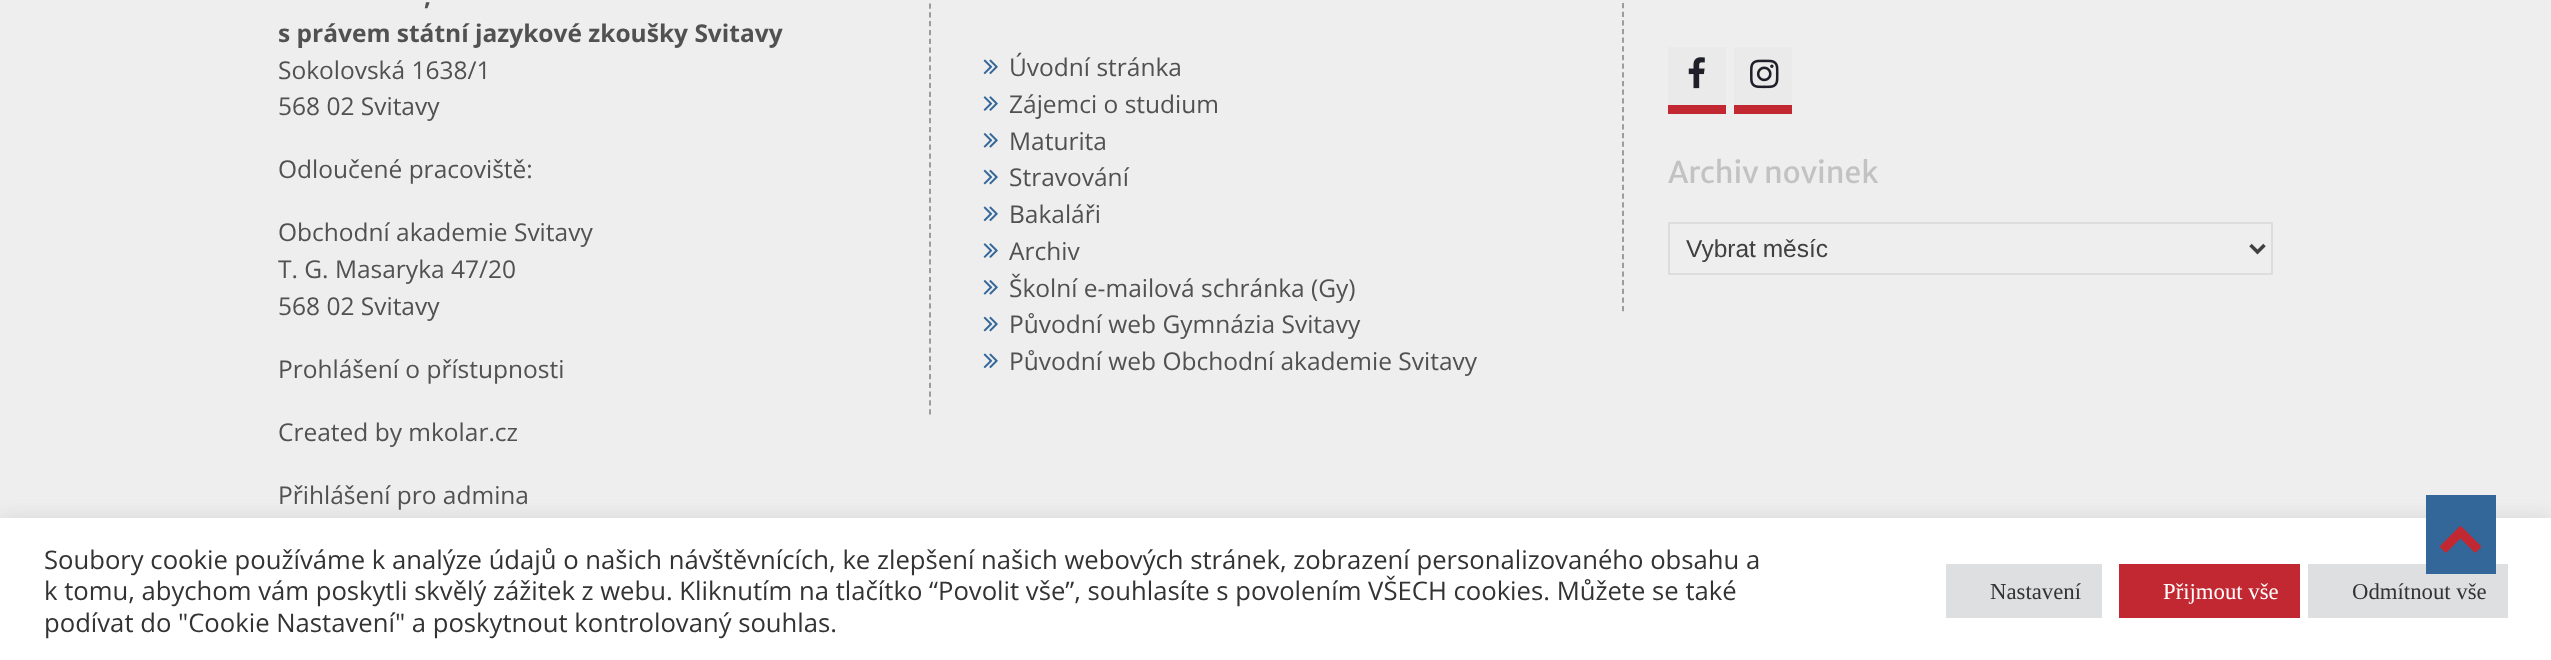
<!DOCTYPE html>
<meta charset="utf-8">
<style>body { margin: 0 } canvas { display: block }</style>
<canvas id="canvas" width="2551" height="660"></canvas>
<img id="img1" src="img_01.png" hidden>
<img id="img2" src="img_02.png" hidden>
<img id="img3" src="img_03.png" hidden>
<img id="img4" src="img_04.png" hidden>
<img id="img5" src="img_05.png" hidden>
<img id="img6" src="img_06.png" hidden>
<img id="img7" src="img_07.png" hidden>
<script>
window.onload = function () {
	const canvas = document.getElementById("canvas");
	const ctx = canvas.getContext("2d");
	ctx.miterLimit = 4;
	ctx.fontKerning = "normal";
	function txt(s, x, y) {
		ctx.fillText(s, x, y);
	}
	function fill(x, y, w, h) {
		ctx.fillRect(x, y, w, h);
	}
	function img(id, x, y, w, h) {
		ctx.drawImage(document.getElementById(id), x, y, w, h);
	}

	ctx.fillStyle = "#EEEEEE";
	fill(0, 0, 2551, 660);
	ctx.beginPath();
	ctx.moveTo(930, -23);
	ctx.lineTo(930, 415);
	ctx.strokeStyle = "#939393";
	ctx.lineWidth = 1.8;
	ctx.setLineDash([5.25, 3.57]);
	ctx.stroke();
	img("img1", 983, 59, 15, 16);
	img("img2", 983, 96, 15, 15);
	img("img3", 983, 133, 15, 15);
	img("img4", 983, 169, 15, 16);
	img("img1", 983, 206, 15, 16);
	img("img2", 983, 243, 15, 15);
	img("img3", 983, 280, 15, 15);
	img("img4", 983, 316, 15, 16);
	img("img1", 983, 353, 15, 16);
	ctx.beginPath();
	ctx.moveTo(1623, -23);
	ctx.lineTo(1623, 311.5);
	ctx.setLineDash([5.25, 3.41]);
	ctx.stroke();
	ctx.fillStyle = "#C12831";
	fill(1668, 105, 58, 9);
	ctx.fillStyle = "#EAEAEA";
	fill(1668, 47, 58, 58);
	img("img5", 1688, 57, 17, 32);
	ctx.fillStyle = "#C12831";
	fill(1734, 105, 58, 9);
	ctx.fillStyle = "#EAEAEA";
	fill(1734, 47, 58, 58);
	img("img6", 1750, 59, 29, 30);
	ctx.strokeStyle = "#DDDDDD";
	ctx.lineWidth = 2;
	ctx.setLineDash([]);
	ctx.strokeRect(1669, 223, 603, 51);
	ctx.beginPath();
	ctx.moveTo(2250.5, 245);
	ctx.lineTo(2257.5, 252);
	ctx.lineTo(2264.5, 245);
	ctx.strokeStyle = "#404040";
	ctx.lineWidth = 3.5;
	ctx.stroke();
	ctx.fillStyle = "rgba(172, 171, 171, 0.3)";
	ctx.filter = "blur(9px)";
	ctx.beginPath();
	ctx.rect(0, 516, 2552, 144);
	ctx.fill();
	ctx.filter = "none";
	ctx.fillStyle = "#FFFFFF";
	fill(0, 518, 2551, 142);
	ctx.fillStyle = "#DEDFE0";
	fill(2308, 564, 200, 54);
	ctx.fillStyle = "#336699";
	fill(2426, 495, 70, 79);
	img("img7", 2440, 526, 41, 27);
	ctx.fillStyle = "#DEDFE0";
	fill(1946, 564, 156, 54);
	ctx.fillStyle = "#C12831";
	fill(2119, 564, 181, 54);
	ctx.font = "bold 24.5px Open Sans";
	ctx.fillStyle = "#515151";
	txt(",", 424, 5);
	txt("s právem státní jazykové zkoušky Svitavy", 278, 42);
	ctx.font = "24.5px Open Sans";
	txt("Sokolovská 1638/1", 278, 79);
	txt("568 02 Svitavy", 278, 115);
	txt("Odloučené pracoviště:", 278, 178);
	txt("Obchodní akademie Svitavy", 278, 241);
	txt("T. G. Masaryka 47/20", 278, 278);
	txt("568 02 Svitavy", 278, 315);
	txt("Prohlášení o přístupnosti", 278, 378);
	txt("Created by mkolar.cz", 278, 441);
	txt("Přihlášení pro admina", 278, 504);
	txt("Úvodní stránka", 1009, 76);
	txt("Zájemci o studium", 1009, 113);
	txt("Maturita", 1009, 150);
	txt("Stravování", 1009, 186);
	txt("Bakaláři", 1009, 223);
	txt("Archiv", 1009, 260);
	txt("Školní e-mailová schránka (Gy)", 1009, 297);
	txt("Původní web Gymnázia Svitavy", 1009, 333);
	txt("Původní web Obchodní akademie Svitavy", 1009, 370);
	ctx.font = "29.75px Merriweather Sans";
	ctx.fillStyle = "#C2C2C2";
	txt("Archiv novinek", 1668, 183);
	ctx.font = "24.5px Liberation Sans";
	ctx.fillStyle = "#404040";
	txt("Vybrat měsíc", 1686, 257);
	ctx.font = "25.67px Open Sans";
	ctx.fillStyle = "#333333";
	txt("Soubory cookie používáme k analýze údajů o našich návštěvnících, ke zlepšení našich webových stránek, zobrazení personalizovaného obsahu a", 44, 569);
	txt("k tomu, abychom vám poskytli skvělý zážitek z webu. Kliknutím na tlačítko “Povolit vše”, souhlasíte s povolením VŠECH cookies. Můžete se také", 44, 600);
	txt("podívat do \"Cookie Nastavení\" a poskytnout kontrolovaný souhlas.", 44, 632);
	ctx.font = "22.75px Liberation Serif";
	txt("Nastavení", 1990, 599);
	ctx.fillStyle = "#FFFFFF";
	txt("Přijmout vše", 2163, 599);
	ctx.fillStyle = "#333333";
	txt("Odmítnout vše", 2352, 599);
};
</script>
